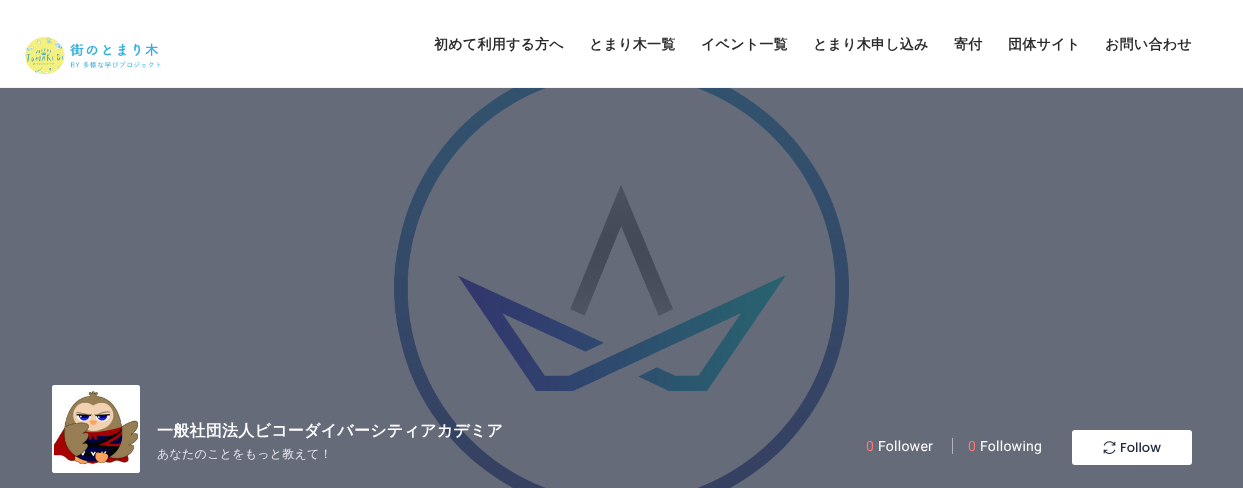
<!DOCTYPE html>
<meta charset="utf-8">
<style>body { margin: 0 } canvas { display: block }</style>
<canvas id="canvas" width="1243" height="488"></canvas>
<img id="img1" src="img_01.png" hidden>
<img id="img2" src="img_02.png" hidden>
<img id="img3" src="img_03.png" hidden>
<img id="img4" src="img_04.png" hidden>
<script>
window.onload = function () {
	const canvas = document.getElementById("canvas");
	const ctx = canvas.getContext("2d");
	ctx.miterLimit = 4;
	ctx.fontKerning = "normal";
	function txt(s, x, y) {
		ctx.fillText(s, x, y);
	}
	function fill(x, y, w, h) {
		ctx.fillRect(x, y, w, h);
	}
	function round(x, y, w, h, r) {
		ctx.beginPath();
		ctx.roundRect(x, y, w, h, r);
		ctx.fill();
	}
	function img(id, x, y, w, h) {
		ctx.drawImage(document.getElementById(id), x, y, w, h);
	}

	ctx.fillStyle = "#FFFFFF";
	fill(0, 0, 1243, 488);
	ctx.fillStyle = "#666B7A";
	fill(0, 88, 1243, 400);
	img("img1", 25, 36, 136, 39);
	ctx.fillStyle = "#F3F3F6";
	fill(0, 87, 1243, 1);
	img("img2", 394, 88, 455, 400);
	img("img3", 52, 385, 88, 88);
	ctx.beginPath();
	ctx.roundRect(53, 386, 86, 86, 2);
	ctx.strokeStyle = "#FFFFFF";
	ctx.lineWidth = 2;
	ctx.stroke();
	ctx.fillStyle = "#B3B5BC";
	fill(952, 438, 1, 16);
	ctx.fillStyle = "#FFFFFF";
	round(1072, 430, 120, 35, 3);
	img("img4", 1103, 441, 13, 13);
	ctx.letterSpacing = "0.25px";
	ctx.font = "bold 14px WenQuanYi Zen Hei";
	ctx.fillStyle = "#2B2B2B";
	txt("初めて利用する方へ", 434, 49);
	txt("とまり木一覧", 589, 49);
	txt("イベント一覧", 701, 49);
	txt("とまり木申し込み", 813, 49);
	txt("寄付", 954, 49);
	txt("団体サイト", 1008, 49);
	txt("お問い合わせ", 1105, 49);
	ctx.font = "bold 16px WenQuanYi Zen Hei";
	ctx.fillStyle = "#FFFFFF";
	txt("一般社団法人ビコーダイバーシティアカデミア", 157, 436);
	ctx.font = "500 12px WenQuanYi Zen Hei";
	ctx.fillStyle = "#E7E7ED";
	txt("あなたのことをもっと教えて！", 157, 458);
	ctx.font = "14px Roboto";
	ctx.fillStyle = "#FF7474";
	txt("0", 866, 451);
	ctx.fillStyle = "#FFFFFF";
	txt("Follower", 878, 451);
	ctx.fillStyle = "#FF7474";
	txt("0", 968, 451);
	ctx.fillStyle = "#FFFFFF";
	txt("Following", 980, 451);
	ctx.letterSpacing = "0px";
	ctx.font = "500 13px Poppins";
	ctx.fillStyle = "#252C41";
	txt("Follow", 1120, 452);
};
</script>
